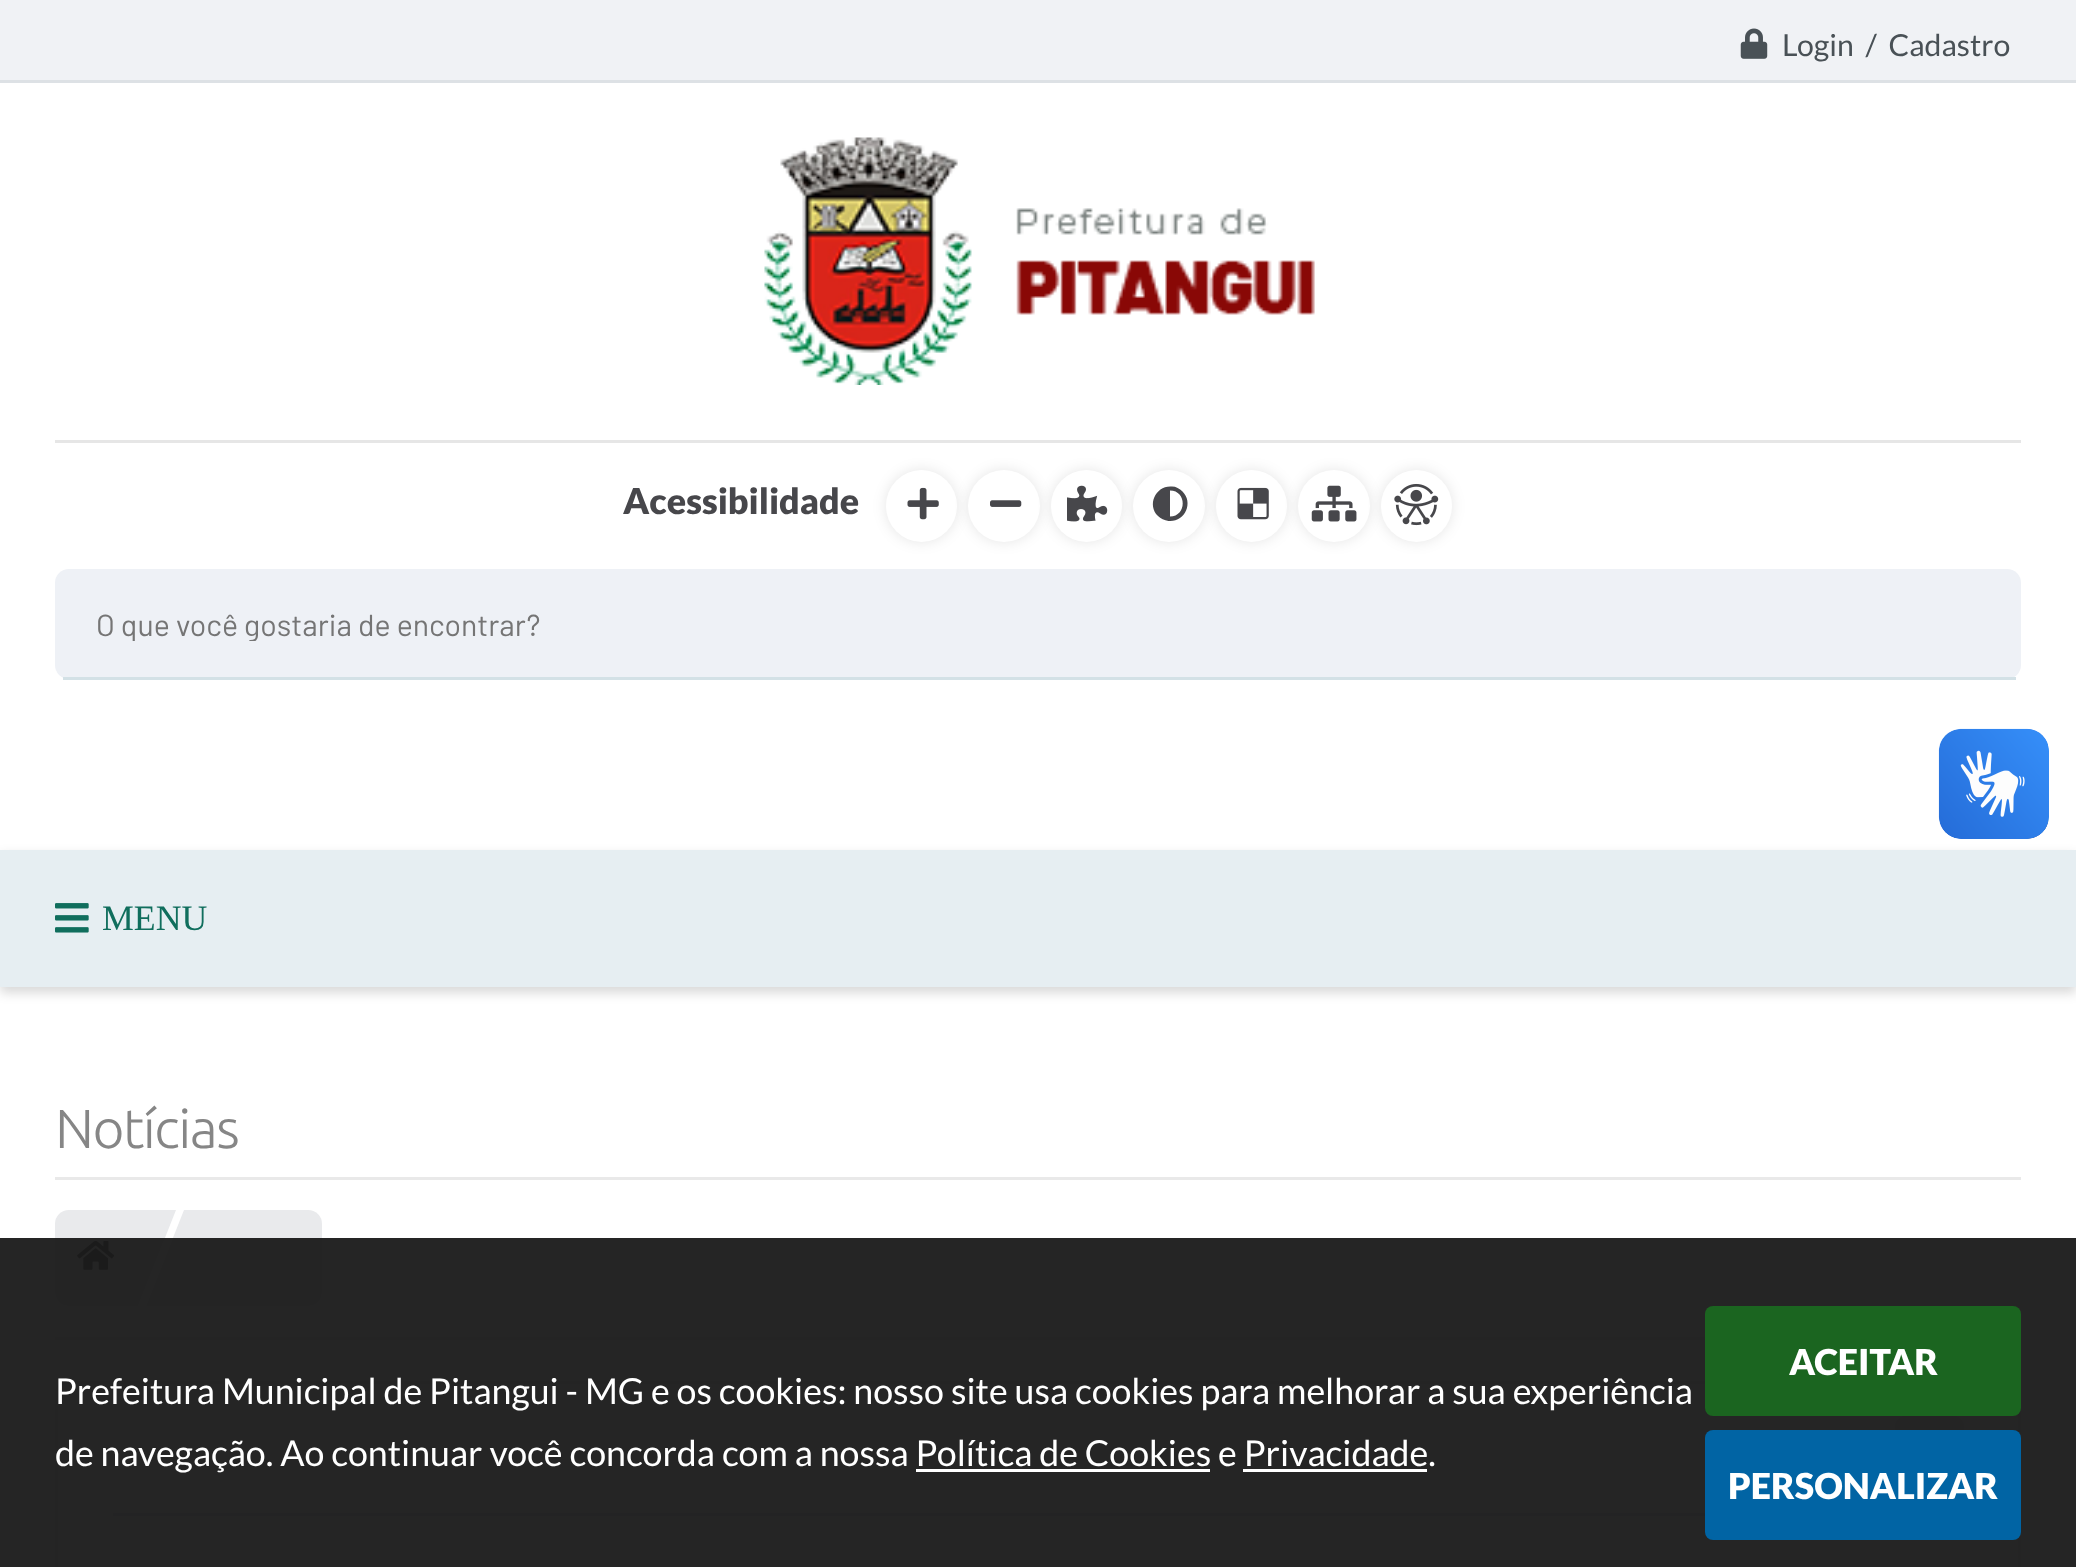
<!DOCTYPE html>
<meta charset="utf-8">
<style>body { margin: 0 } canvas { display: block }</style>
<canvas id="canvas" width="2076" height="1567"></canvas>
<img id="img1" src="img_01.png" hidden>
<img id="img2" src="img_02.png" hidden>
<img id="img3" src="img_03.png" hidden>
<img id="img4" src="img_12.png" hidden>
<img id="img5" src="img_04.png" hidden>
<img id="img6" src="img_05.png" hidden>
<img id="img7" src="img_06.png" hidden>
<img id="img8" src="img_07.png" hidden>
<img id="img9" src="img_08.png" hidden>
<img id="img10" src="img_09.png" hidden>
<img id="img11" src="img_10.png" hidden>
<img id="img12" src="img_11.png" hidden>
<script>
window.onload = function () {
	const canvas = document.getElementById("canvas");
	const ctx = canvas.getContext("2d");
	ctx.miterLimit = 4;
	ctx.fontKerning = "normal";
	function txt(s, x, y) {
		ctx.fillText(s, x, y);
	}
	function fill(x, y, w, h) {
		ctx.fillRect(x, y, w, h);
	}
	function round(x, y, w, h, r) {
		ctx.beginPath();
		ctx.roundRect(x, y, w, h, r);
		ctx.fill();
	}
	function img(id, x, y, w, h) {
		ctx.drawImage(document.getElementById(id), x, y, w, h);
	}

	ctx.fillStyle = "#FFFFFF";
	fill(0, 0, 2076, 1567);
	ctx.fillStyle = "#F0F2F5";
	fill(0, 0, 2076, 80);
	ctx.fillStyle = "#DDE1E5";
	fill(0, 80, 2076, 3);
	img("img1", 1740, 28, 28, 31);
	ctx.fillStyle = "rgba(0, 0, 0, 0.15)";
	ctx.filter = "blur(5.5px)";
	ctx.beginPath();
	ctx.rect(0, 855, 2076, 138);
	ctx.fill();
	ctx.filter = "none";
	img("img2", 1938, 728, 111, 111);
	img("img3", 1939, 729, 110, 110);
	ctx.fillStyle = "#E9E9E9";
	fill(55, 1337, 1650, 3);
	ctx.fillStyle = "#E9EAEC";
	ctx.beginPath();
	ctx.roundRect(55, 1210, 83, 96, [14, 0, 0, 14]);
	ctx.fill();
	img("img4", 77, 1240, 38, 30);
	ctx.beginPath();
	ctx.moveTo(138, 1210);
	ctx.lineTo(176, 1210);
	ctx.lineTo(138, 1306);
	ctx.closePath();
	ctx.fill();
	ctx.beginPath();
	ctx.roundRect(184, 1210, 138, 96, [0, 14, 14, 0]);
	ctx.fill();
	ctx.beginPath();
	ctx.moveTo(184, 1306);
	ctx.lineTo(146, 1306);
	ctx.lineTo(184, 1210);
	ctx.closePath();
	ctx.fill();
	ctx.fillStyle = "#F1F2F3";
	ctx.beginPath();
	ctx.roundRect(56.5, 1382.5, 1963, 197, 9.5);
	ctx.fill();
	ctx.strokeStyle = "#DDDDDD";
	ctx.lineWidth = 3;
	ctx.stroke();
	ctx.fillStyle = "#E3E6E8";
	round(1895, 1416, 69, 69, 11);
	ctx.fillStyle = "#DBDBDC";
	fill(113, 1513, 1592, 3);
	ctx.fillStyle = "rgba(25, 25, 25, 0.95)";
	fill(0, 1238, 2076, 329);
	ctx.fillStyle = "#FFFFFF";
	fill(916, 1469, 294, 3);
	fill(1243, 1469, 184, 3);
	ctx.fillStyle = "#1B6520";
	round(1705, 1306, 316, 110, 8);
	ctx.fillStyle = "#0164A4";
	round(1705, 1430, 316, 110, 8);
	img("img5", 764, 137, 551, 248);
	ctx.fillStyle = "#E6E6E6";
	fill(55, 440, 1966, 3);
	ctx.fillStyle = "rgba(0, 0, 0, 0.1)";
	ctx.filter = "blur(7px)";
	ctx.beginPath();
	ctx.roundRect(886, 470, 71, 72, 35.5);
	ctx.fill();
	ctx.filter = "none";
	ctx.fillStyle = "#FFFFFF";
	round(886, 470, 71, 72, 35.5);
	img("img6", 907, 487, 32, 33);
	ctx.fillStyle = "rgba(0, 0, 0, 0.1)";
	ctx.filter = "blur(7px)";
	ctx.beginPath();
	ctx.roundRect(968, 470, 72, 72, 36);
	ctx.fill();
	ctx.filter = "none";
	ctx.fillStyle = "#FFFFFF";
	ctx.beginPath();
	ctx.arc(1004, 506, 36, 0, Math.PI * 2);
	ctx.fill();
	img("img7", 990, 500, 32, 7);
	ctx.fillStyle = "rgba(0, 0, 0, 0.1)";
	ctx.filter = "blur(7px)";
	ctx.beginPath();
	ctx.roundRect(1051, 470, 71, 72, 35.5);
	ctx.fill();
	ctx.filter = "none";
	ctx.fillStyle = "#FFFFFF";
	round(1051, 470, 71, 72, 35.5);
	img("img8", 1067, 485, 41, 37);
	ctx.fillStyle = "rgba(0, 0, 0, 0.1)";
	ctx.filter = "blur(7px)";
	ctx.beginPath();
	ctx.roundRect(1133, 470, 72, 72, 36);
	ctx.fill();
	ctx.filter = "none";
	ctx.fillStyle = "#FFFFFF";
	ctx.beginPath();
	ctx.arc(1169, 506, 36, 0, Math.PI * 2);
	ctx.fill();
	ctx.fillStyle = "#47474B";
	ctx.beginPath();
	ctx.moveTo(1158, 516);
	ctx.bezierCurveTo(1146.5, 504.5, 1156, 485, 1172, 486.5);
	ctx.bezierCurveTo(1176, 486.5, 1179.5, 488.5, 1182.5, 491.5);
	ctx.bezierCurveTo(1194, 503, 1184.5, 522.5, 1168.5, 521);
	ctx.bezierCurveTo(1164.5, 520.5, 1160.5, 518.5, 1158, 516);
	ctx.closePath();
	ctx.moveTo(1170, 516.5);
	ctx.bezierCurveTo(1187, 516.5, 1187, 490.5, 1170, 490.5);
	ctx.closePath();
	ctx.fill();
	ctx.fillStyle = "rgba(0, 0, 0, 0.1)";
	ctx.filter = "blur(7px)";
	ctx.beginPath();
	ctx.roundRect(1216, 470, 71, 72, 35.5);
	ctx.fill();
	ctx.filter = "none";
	ctx.fillStyle = "#FFFFFF";
	round(1216, 470, 71, 72, 35.5);
	img("img9", 1237, 487, 32, 33);
	ctx.fillStyle = "rgba(0, 0, 0, 0.1)";
	ctx.filter = "blur(7px)";
	ctx.beginPath();
	ctx.roundRect(1298, 470, 72, 72, 36);
	ctx.fill();
	ctx.filter = "none";
	ctx.fillStyle = "#FFFFFF";
	ctx.beginPath();
	ctx.arc(1334, 506, 36, 0, Math.PI * 2);
	ctx.fill();
	img("img10", 1311, 485, 46, 37);
	ctx.fillStyle = "rgba(0, 0, 0, 0.1)";
	ctx.filter = "blur(7px)";
	ctx.beginPath();
	ctx.roundRect(1381, 470, 71, 72, 35.5);
	ctx.fill();
	ctx.filter = "none";
	ctx.fillStyle = "#FFFFFF";
	round(1381, 470, 71, 72, 35.5);
	img("img11", 1394, 483, 45, 43);
	ctx.fillStyle = "#EEF1F6";
	round(55, 569, 1966, 110, 14);
	ctx.fillStyle = "#D3E1E6";
	fill(63, 677, 1953, 3);
	ctx.fillStyle = "#E6EEF2";
	fill(0, 850, 2076, 137);
	img("img12", 55, 903, 34, 30);
	ctx.fillStyle = "#E9E9E9";
	fill(55, 1177, 1966, 3);
	ctx.font = "30.25px Lato";
	ctx.fillStyle = "#495156";
	txt("Login  /  Cadastro", 1782, 56);
	ctx.font = "35.75px Lato";
	ctx.fillStyle = "#FFFFFF";
	txt("Prefeitura Municipal de Pitangui - MG e os cookies: nosso site usa cookies para melhorar a sua experiência", 55, 1404);
	txt("de navegação. Ao continuar você concorda com a nossa Política de Cookies e Privacidade.", 55, 1466);
	ctx.font = "900 35.75px Lato";
	txt("ACEITAR", 1789, 1375);
	txt("PERSONALIZAR", 1728, 1499);
	ctx.fillStyle = "#47474B";
	txt("Acessibilidade", 623, 514);
	ctx.save();
	ctx.beginPath();
	ctx.rect(96, 605, 1851, 36);
	ctx.clip();
	ctx.font = "30.25px Barlow";
	ctx.fillStyle = "#757575";
	txt("O que você gostaria de encontrar?", 96, 636);
	ctx.restore();
	ctx.font = "35.75px Liberation Serif";
	ctx.fillStyle = "#106E5D";
	txt("MENU", 102, 930);
	ctx.letterSpacing = "-1.5px";
	ctx.font = "300 55px Ubuntu";
	ctx.fillStyle = "#868686";
	txt("Notícias", 55, 1148);
};
</script>
